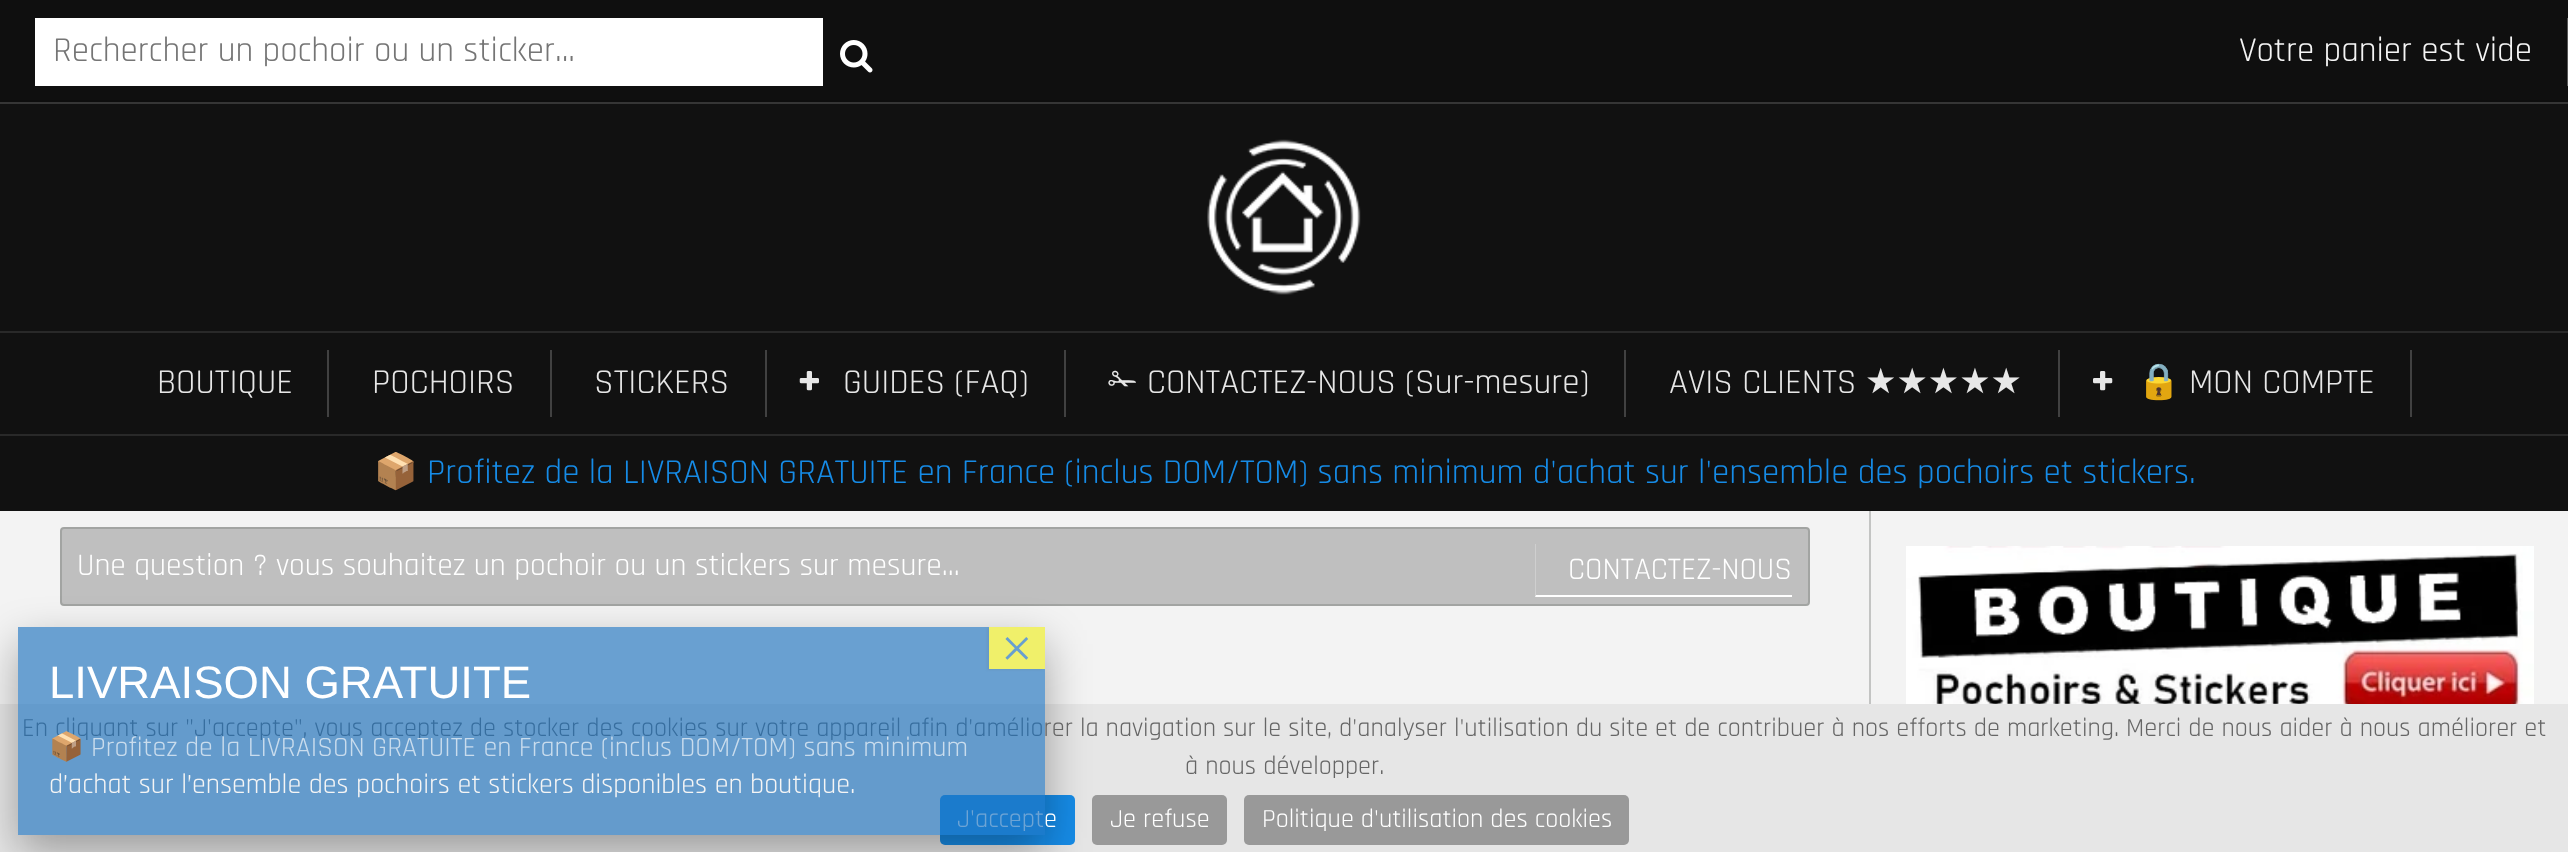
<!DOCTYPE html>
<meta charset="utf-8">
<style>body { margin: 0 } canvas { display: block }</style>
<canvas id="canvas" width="2568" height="852"></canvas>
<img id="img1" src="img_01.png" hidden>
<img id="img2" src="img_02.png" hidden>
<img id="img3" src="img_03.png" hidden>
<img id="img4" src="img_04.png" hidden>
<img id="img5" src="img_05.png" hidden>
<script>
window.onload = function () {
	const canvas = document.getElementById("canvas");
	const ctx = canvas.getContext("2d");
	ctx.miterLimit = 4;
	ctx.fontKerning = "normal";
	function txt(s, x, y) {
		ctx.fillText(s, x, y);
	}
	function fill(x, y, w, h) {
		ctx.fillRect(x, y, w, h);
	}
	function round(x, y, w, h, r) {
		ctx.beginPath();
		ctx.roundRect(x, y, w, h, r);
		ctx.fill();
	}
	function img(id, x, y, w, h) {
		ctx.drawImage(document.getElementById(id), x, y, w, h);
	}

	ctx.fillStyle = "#F3F3F3";
	fill(0, 0, 2568, 852);
	ctx.fillStyle = "#111111";
	fill(0, 104, 2568, 407);
	ctx.fillStyle = "#0F0F0F";
	fill(0, 0, 2568, 100);
	ctx.fillStyle = "#0D0D0D";
	fill(0, 100, 2568, 2);
	ctx.fillStyle = "#FFFFFF";
	fill(35, 18, 788, 68);
	img("img1", 840, 40, 33, 33);
	ctx.fillStyle = "#575757";
	fill(2567, 18, 1, 68);
	ctx.fillStyle = "#353535";
	fill(0, 102, 2568, 2);
	img("img2", 1207, 139, 154, 156);
	ctx.fillStyle = "#292929";
	fill(0, 331, 2568, 2);
	ctx.fillStyle = "#414141";
	fill(327, 350, 2, 67);
	fill(550, 350, 2, 67);
	fill(765, 350, 2, 67);
	fill(1064, 350, 2, 67);
	img("img3", 799, 371, 20, 20);
	fill(1624, 350, 2, 67);
	fill(2058, 350, 2, 67);
	fill(2410, 350, 2, 67);
	img("img4", 2093, 371, 20, 20);
	ctx.fillStyle = "#292929";
	fill(0, 434, 2568, 2);
	ctx.fillStyle = "#BFBFBF";
	ctx.beginPath();
	ctx.roundRect(61, 528, 1748, 77, 3);
	ctx.fill();
	ctx.strokeStyle = "#A2A4A2";
	ctx.lineWidth = 2;
	ctx.stroke();
	ctx.fillStyle = "#FFFFFF";
	ctx.beginPath();
	ctx.moveTo(1792, 597);
	ctx.lineTo(1535, 597);
	ctx.lineTo(1536, 595);
	ctx.lineTo(1792, 595);
	ctx.closePath();
	ctx.fill();
	ctx.fillStyle = "rgba(255, 255, 255, 0.25)";
	ctx.beginPath();
	ctx.moveTo(1535, 597);
	ctx.lineTo(1535, 544);
	ctx.lineTo(1536, 544);
	ctx.lineTo(1536, 595);
	ctx.closePath();
	ctx.fill();
	ctx.fillStyle = "#C3C4C3";
	fill(1869, 511, 2, 193);
	img("img5", 1906, 546, 628, 158);
	ctx.fillStyle = "#E6E6E6";
	fill(0, 704, 2568, 148);
	ctx.fillStyle = "#168BE6";
	round(940, 795, 135, 50, 5);
	ctx.fillStyle = "#999999";
	round(1092, 795, 135, 50, 5);
	ctx.save();
	ctx.beginPath();
	ctx.moveTo(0, 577);
	ctx.lineTo(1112, 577);
	ctx.lineTo(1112, 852);
	ctx.lineTo(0, 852);
	ctx.closePath();
	ctx.moveTo(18, 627);
	ctx.lineTo(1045, 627);
	ctx.lineTo(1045, 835);
	ctx.lineTo(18, 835);
	ctx.closePath();
	ctx.clip("evenodd");
	ctx.fillStyle = "rgba(2, 2, 2, 0.33)";
	ctx.filter = "blur(22px)";
	ctx.beginPath();
	ctx.rect(18, 644, 1027, 208);
	ctx.fill();
	ctx.filter = "none";
	ctx.restore();
	round(1244, 795, 385, 50, 5);
	ctx.font = "35px Rajdhani";
	ctx.fillStyle = "#757575";
	txt("Rechercher un pochoir ou un sticker...", 53, 61);
	ctx.fillStyle = "#F5F5F5";
	txt("Votre panier est vide", 2239, 61);
	ctx.fillStyle = "#E7E7E7";
	txt("BOUTIQUE", 157, 393);
	txt("POCHOIRS", 372, 393);
	txt("STICKERS", 594, 393);
	txt("GUIDES (FAQ)", 843, 393);
	ctx.font = "35px DejaVu Sans";
	txt("✁", 1108, 393);
	ctx.font = "35px Rajdhani";
	txt("CONTACTEZ-NOUS (Sur-mesure)", 1147, 393);
	txt("AVIS CLIENTS", 1669, 393);
	ctx.font = "35px DejaVu Sans";
	txt("★★★★★", 1865, 393);
	ctx.font = "35px Noto Color Emoji";
	txt("🔒", 2137, 393);
	ctx.font = "35px Rajdhani";
	txt("MON COMPTE", 2189, 393);
	ctx.font = "35px Noto Color Emoji";
	ctx.fillStyle = "#168BE6";
	txt("📦", 374, 483);
	ctx.font = "35px Rajdhani";
	txt("Profitez de la LIVRAISON GRATUITE en France (inclus DOM/TOM) sans minimum d'achat sur l'ensemble des pochoirs et stickers.", 427, 483);
	ctx.font = "31.5px Rajdhani";
	ctx.fillStyle = "#FFFFFF";
	txt("Une question ? vous souhaitez un pochoir ou un stickers sur mesure...", 77, 575);
	txt("CONTACTEZ-NOUS", 1568, 579);
	ctx.font = "26.25px Rajdhani";
	ctx.fillStyle = "#666666";
	txt("En cliquant sur \"J'accepte\", vous acceptez de stocker des cookies sur votre appareil afin d'améliorer la navigation sur le site, d'analyser l'utilisation du site et de contribuer à nos efforts de marketing. Merci de nous aider à nous améliorer et", 22, 736);
	txt("à nous développer.", 1185, 774);
	ctx.fillStyle = "#FFFFFF";
	txt("J'accepte", 957, 827);
	ctx.fillStyle = "rgba(30, 115, 190, 0.65)";
	fill(18, 627, 1027, 208);
	ctx.fillStyle = "rgba(85, 85, 85, 0.1)";
	ctx.filter = "blur(1px)";
	ctx.beginPath();
	ctx.rect(987, 628, 56, 42);
	ctx.fill();
	ctx.filter = "none";
	ctx.fillStyle = "#F0F06A";
	fill(989, 627, 56, 42);
	ctx.font = "56px Liberation Serif";
	ctx.fillStyle = "#689FD0";
	txt("×", 1001, 667);
	ctx.font = "28px Rajdhani";
	ctx.fillStyle = "#F5F5F5";
	txt("d’achat sur l’ensemble des pochoirs et stickers disponibles en boutique.", 49, 793);
	ctx.fillStyle = "#C9DCED";
	txt("Profitez de la LIVRAISON GRATUITE en France (inclus DOM/TOM) sans minimum", 91, 756);
	ctx.font = "28px Noto Color Emoji";
	txt("📦", 49, 756);
	ctx.font = "45.5px Liberation Sans";
	ctx.fillStyle = "#FFFFFF";
	txt("LIVRAISON GRATUITE", 49, 698);
	ctx.font = "26.25px Rajdhani";
	txt("Je refuse", 1110, 827);
	txt("Politique d'utilisation des cookies", 1262, 827);
};
</script>
